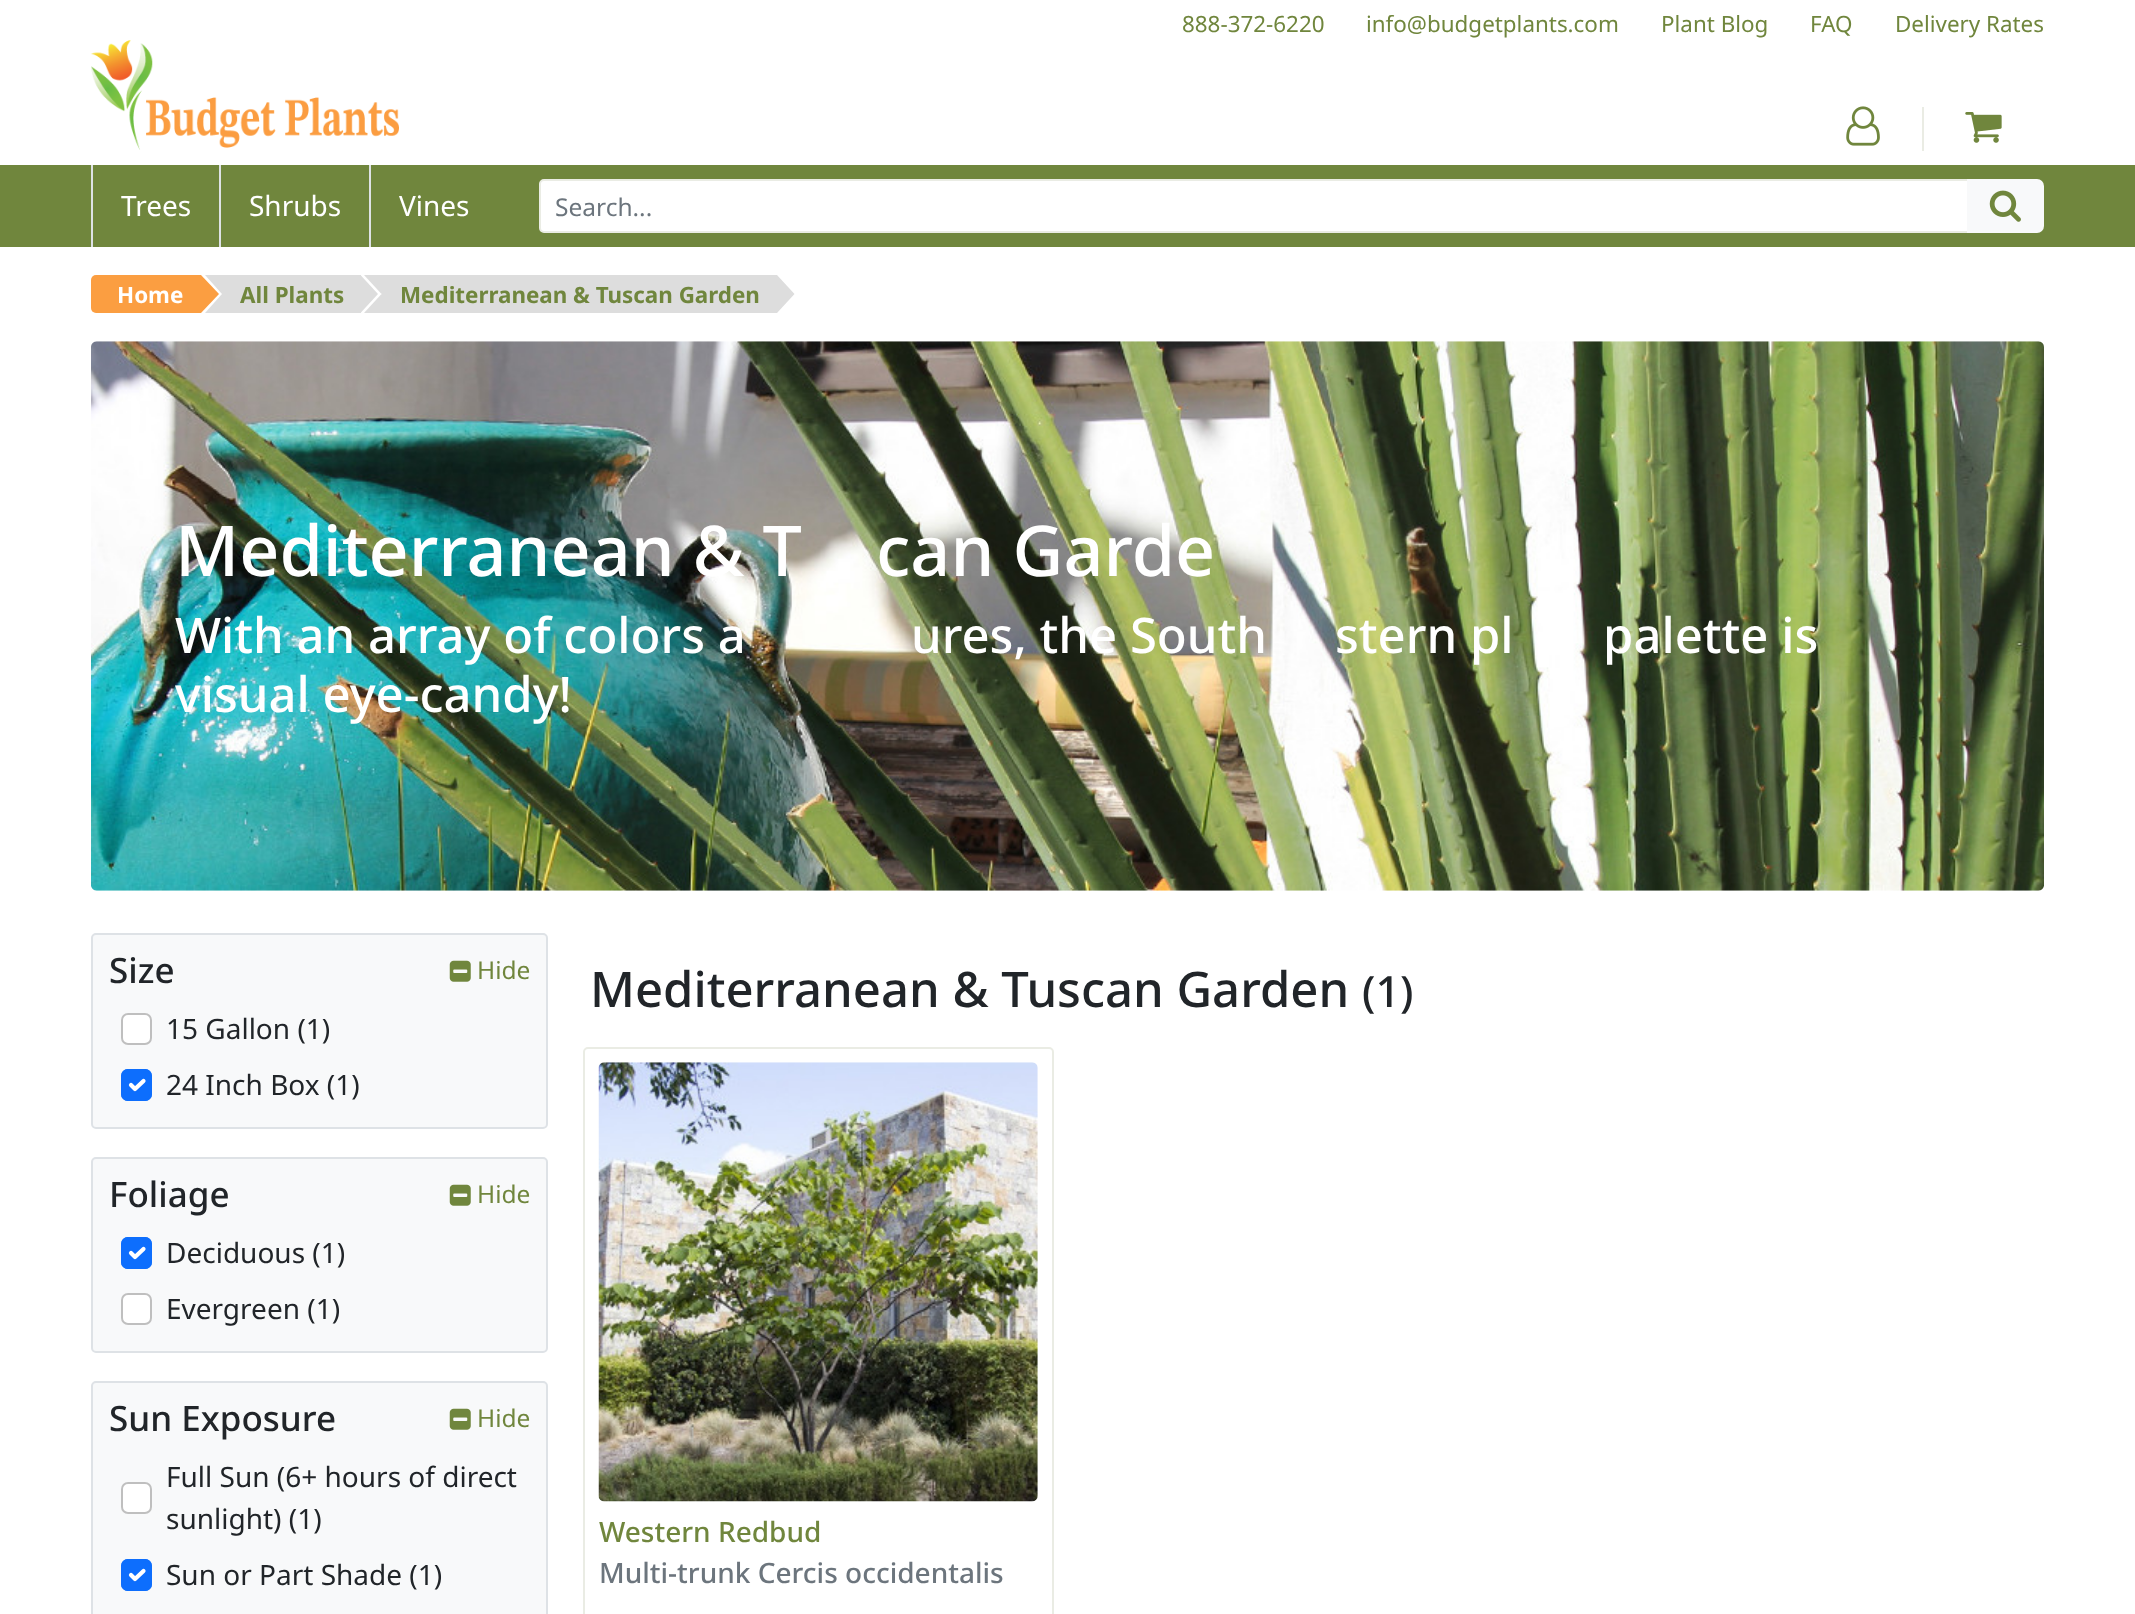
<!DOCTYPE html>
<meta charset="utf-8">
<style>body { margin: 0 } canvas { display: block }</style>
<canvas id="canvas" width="2135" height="1614"></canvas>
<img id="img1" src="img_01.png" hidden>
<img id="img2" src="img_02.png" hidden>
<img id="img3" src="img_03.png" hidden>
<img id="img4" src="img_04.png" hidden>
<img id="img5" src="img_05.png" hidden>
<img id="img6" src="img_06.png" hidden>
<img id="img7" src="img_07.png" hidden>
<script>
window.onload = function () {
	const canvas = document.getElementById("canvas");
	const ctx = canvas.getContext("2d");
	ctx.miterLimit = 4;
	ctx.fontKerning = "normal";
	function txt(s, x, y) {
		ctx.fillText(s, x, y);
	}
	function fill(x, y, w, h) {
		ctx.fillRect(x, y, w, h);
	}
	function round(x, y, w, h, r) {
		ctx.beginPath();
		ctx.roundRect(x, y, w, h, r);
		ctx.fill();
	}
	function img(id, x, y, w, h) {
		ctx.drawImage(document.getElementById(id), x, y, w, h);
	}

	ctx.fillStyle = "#FFFFFF";
	fill(0, 0, 2135, 1614);
	img("img1", 91, 40, 308, 110);
	ctx.fillStyle = "#EAECE4";
	fill(1922, 107, 2, 44);
	img("img2", 1846, 106, 34, 40);
	img("img3", 1965, 112, 37, 31);
	ctx.fillStyle = "#70863D";
	fill(0, 165, 2135, 82);
	ctx.fillStyle = "#DEE2E6";
	fill(91, 165, 2, 82);
	fill(219, 165, 2, 82);
	fill(369, 165, 2, 82);
	ctx.fillStyle = "#FFFFFF";
	ctx.beginPath();
	ctx.roundRect(540, 180, 1428, 52, [4, 0, 0, 4]);
	ctx.fill();
	ctx.strokeStyle = "#EAECE4";
	ctx.lineWidth = 2;
	ctx.stroke();
	ctx.fillStyle = "#F8F9FA";
	ctx.beginPath();
	ctx.roundRect(1967, 179, 77, 54, [0, 7, 7, 0]);
	ctx.fill();
	img("img4", 1989, 190, 32, 32);
	ctx.fillStyle = "#FB9E41";
	ctx.beginPath();
	ctx.roundRect(91, 275, 110, 38, [5, 0, 0, 5]);
	ctx.fill();
	ctx.beginPath();
	ctx.moveTo(201, 313);
	ctx.lineTo(201, 275);
	ctx.lineTo(219, 294);
	ctx.closePath();
	ctx.fill();
	ctx.fillStyle = "#DDDDDD";
	fill(240, 275, 121, 38);
	ctx.beginPath();
	ctx.moveTo(360.5, 313);
	ctx.lineTo(360.5, 275);
	ctx.lineTo(378, 294);
	ctx.closePath();
	ctx.fill();
	fill(399, 275, 378, 38);
	ctx.beginPath();
	ctx.moveTo(364, 275);
	ctx.lineTo(399, 275);
	ctx.lineTo(381.5, 294);
	ctx.closePath();
	ctx.fill();
	fill(382, 275, 17, 38);
	ctx.beginPath();
	ctx.moveTo(399, 313);
	ctx.lineTo(364, 313);
	ctx.lineTo(381.5, 294);
	ctx.closePath();
	ctx.fill();
	ctx.beginPath();
	ctx.moveTo(777, 313);
	ctx.lineTo(777, 275);
	ctx.lineTo(794.5, 294);
	ctx.closePath();
	ctx.fill();
	img("img5", 91, 341, 1953, 550);
	ctx.fillStyle = "#F8F9FA";
	ctx.beginPath();
	ctx.roundRect(92, 934, 455, 194, 4);
	ctx.fill();
	ctx.strokeStyle = "#DEE2E6";
	ctx.stroke();
	img("img6", 449, 960, 22, 22);
	ctx.fillStyle = "#FFFFFF";
	round(121, 1013, 31, 32, 7);
	ctx.beginPath();
	ctx.roundRect(122, 1014, 29, 30, 6);
	ctx.strokeStyle = "rgba(0, 0, 0, 0.25)";
	ctx.stroke();
	ctx.fillStyle = "#0D6EFD";
	round(121, 1069, 31, 32, 7);
	ctx.beginPath();
	ctx.moveTo(131, 1085);
	ctx.lineTo(135, 1089);
	ctx.lineTo(143.5, 1081);
	ctx.strokeStyle = "#FFFFFF";
	ctx.lineWidth = 4.2;
	ctx.lineCap = "round";
	ctx.lineJoin = "round";
	ctx.stroke();
	ctx.beginPath();
	ctx.roundRect(122, 1070, 29, 30, 6);
	ctx.strokeStyle = "#0D6EFD";
	ctx.lineWidth = 2;
	ctx.lineJoin = "miter";
	ctx.stroke();
	ctx.fillStyle = "#F8F9FA";
	ctx.beginPath();
	ctx.roundRect(92, 1158, 455, 194, 4);
	ctx.fill();
	ctx.strokeStyle = "#DEE2E6";
	ctx.stroke();
	img("img6", 449, 1184, 22, 22);
	ctx.fillStyle = "#0D6EFD";
	round(121, 1237, 31, 32, 7);
	ctx.beginPath();
	ctx.moveTo(131, 1253);
	ctx.lineTo(135, 1257);
	ctx.lineTo(143.5, 1249);
	ctx.strokeStyle = "#FFFFFF";
	ctx.lineWidth = 4.2;
	ctx.lineJoin = "round";
	ctx.stroke();
	ctx.beginPath();
	ctx.roundRect(122, 1238, 29, 30, 6);
	ctx.strokeStyle = "#0D6EFD";
	ctx.lineWidth = 2;
	ctx.lineJoin = "miter";
	ctx.stroke();
	ctx.fillStyle = "#FFFFFF";
	round(121, 1293, 31, 32, 7);
	ctx.beginPath();
	ctx.roundRect(122, 1294, 29, 30, 6);
	ctx.strokeStyle = "rgba(0, 0, 0, 0.25)";
	ctx.stroke();
	ctx.fillStyle = "#F8F9FA";
	ctx.beginPath();
	ctx.roundRect(92, 1382, 455, 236, 4);
	ctx.fill();
	ctx.strokeStyle = "#DEE2E6";
	ctx.stroke();
	img("img6", 449, 1408, 22, 22);
	ctx.fillStyle = "#FFFFFF";
	round(121, 1482, 31, 32, 7);
	ctx.beginPath();
	ctx.roundRect(122, 1483, 29, 30, 6);
	ctx.strokeStyle = "rgba(0, 0, 0, 0.25)";
	ctx.stroke();
	ctx.fillStyle = "#0D6EFD";
	round(121, 1559, 31, 32, 7);
	ctx.beginPath();
	ctx.moveTo(131, 1575);
	ctx.lineTo(135, 1579);
	ctx.lineTo(143.5, 1571);
	ctx.strokeStyle = "#FFFFFF";
	ctx.lineWidth = 4.2;
	ctx.lineJoin = "round";
	ctx.stroke();
	ctx.beginPath();
	ctx.roundRect(122, 1560, 29, 30, 6);
	ctx.strokeStyle = "#0D6EFD";
	ctx.lineWidth = 2;
	ctx.lineJoin = "miter";
	ctx.stroke();
	ctx.beginPath();
	ctx.roundRect(584, 1048, 469, 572, 4);
	ctx.strokeStyle = "#EAECE4";
	ctx.stroke();
	img("img7", 598, 1062, 440, 440);
	ctx.font = "22.4px Noto Sans";
	ctx.fillStyle = "#70863D";
	txt("888-372-6220", 1182, 32);
	txt("info@budgetplants.com", 1366, 32);
	txt("Plant Blog", 1661, 32);
	txt("FAQ", 1810, 32);
	txt("Delivery Rates", 1895, 32);
	ctx.font = "28px Noto Sans";
	ctx.fillStyle = "#FFFFFF";
	txt("Trees", 121, 216);
	txt("Shrubs", 249, 216);
	txt("Vines", 399, 216);
	ctx.font = "24.5px Noto Sans";
	ctx.fillStyle = "#6C757D";
	txt("Search...", 555, 216);
	ctx.font = "bold 22.4px Noto Sans";
	ctx.fillStyle = "#FFFFFF";
	txt("Home", 117, 303);
	ctx.fillStyle = "#70863D";
	txt("All Plants", 240, 303);
	ctx.fillStyle = "#DDDDDD";
	ctx.beginPath();
	ctx.moveTo(205, 275);
	ctx.lineTo(240, 275);
	ctx.lineTo(222, 294);
	ctx.closePath();
	ctx.fill();
	fill(222, 275, 18, 38);
	ctx.beginPath();
	ctx.moveTo(240, 313);
	ctx.lineTo(205, 313);
	ctx.lineTo(222, 294);
	ctx.closePath();
	ctx.fill();
	ctx.fillStyle = "#70863D";
	txt("Mediterranean & Tuscan Garden", 400, 303);
	ctx.font = "500 70px Noto Sans";
	ctx.fillStyle = "#FFFFFF";
	txt("Mediterranean & T", 175, 576);
	txt("can Garde", 876, 576);
	ctx.font = "500 49px Noto Sans";
	txt("With an array of colors a", 175, 653);
	txt("ures, the South", 911, 653);
	txt("stern pl", 1335, 653);
	txt("palette is", 1603, 653);
	txt("visual eye-candy!", 175, 712);
	ctx.font = "500 35px Noto Sans";
	ctx.fillStyle = "#212529";
	txt("Size", 109, 983);
	ctx.font = "24.5px Noto Sans";
	ctx.fillStyle = "#70863D";
	txt("Hide", 477, 979);
	ctx.font = "28px Noto Sans";
	ctx.fillStyle = "#212529";
	txt("15 Gallon (1)", 166, 1039);
	txt("24 Inch Box (1)", 166, 1095);
	ctx.font = "500 35px Noto Sans";
	txt("Foliage", 109, 1207);
	ctx.font = "24.5px Noto Sans";
	ctx.fillStyle = "#70863D";
	txt("Hide", 477, 1203);
	ctx.font = "28px Noto Sans";
	ctx.fillStyle = "#212529";
	txt("Deciduous (1)", 166, 1263);
	txt("Evergreen (1)", 166, 1319);
	ctx.font = "500 35px Noto Sans";
	txt("Sun Exposure", 109, 1431);
	ctx.font = "24.5px Noto Sans";
	ctx.fillStyle = "#70863D";
	txt("Hide", 477, 1427);
	ctx.font = "28px Noto Sans";
	ctx.fillStyle = "#212529";
	txt("Full Sun (6+ hours of direct", 166, 1487);
	txt("sunlight) (1)", 166, 1529);
	txt("Sun or Part Shade (1)", 166, 1585);
	ctx.font = "500 49px Noto Sans";
	txt("Mediterranean & Tuscan Garden", 590, 1007);
	ctx.font = "500 43px Noto Sans";
	txt("(1)", 1362, 1007);
	ctx.font = "500 28px Noto Sans";
	ctx.fillStyle = "#70863D";
	txt("Western Redbud", 599, 1542);
	ctx.fillStyle = "#6C757D";
	txt("Multi-trunk Cercis occidentalis", 599, 1583);
};
</script>
